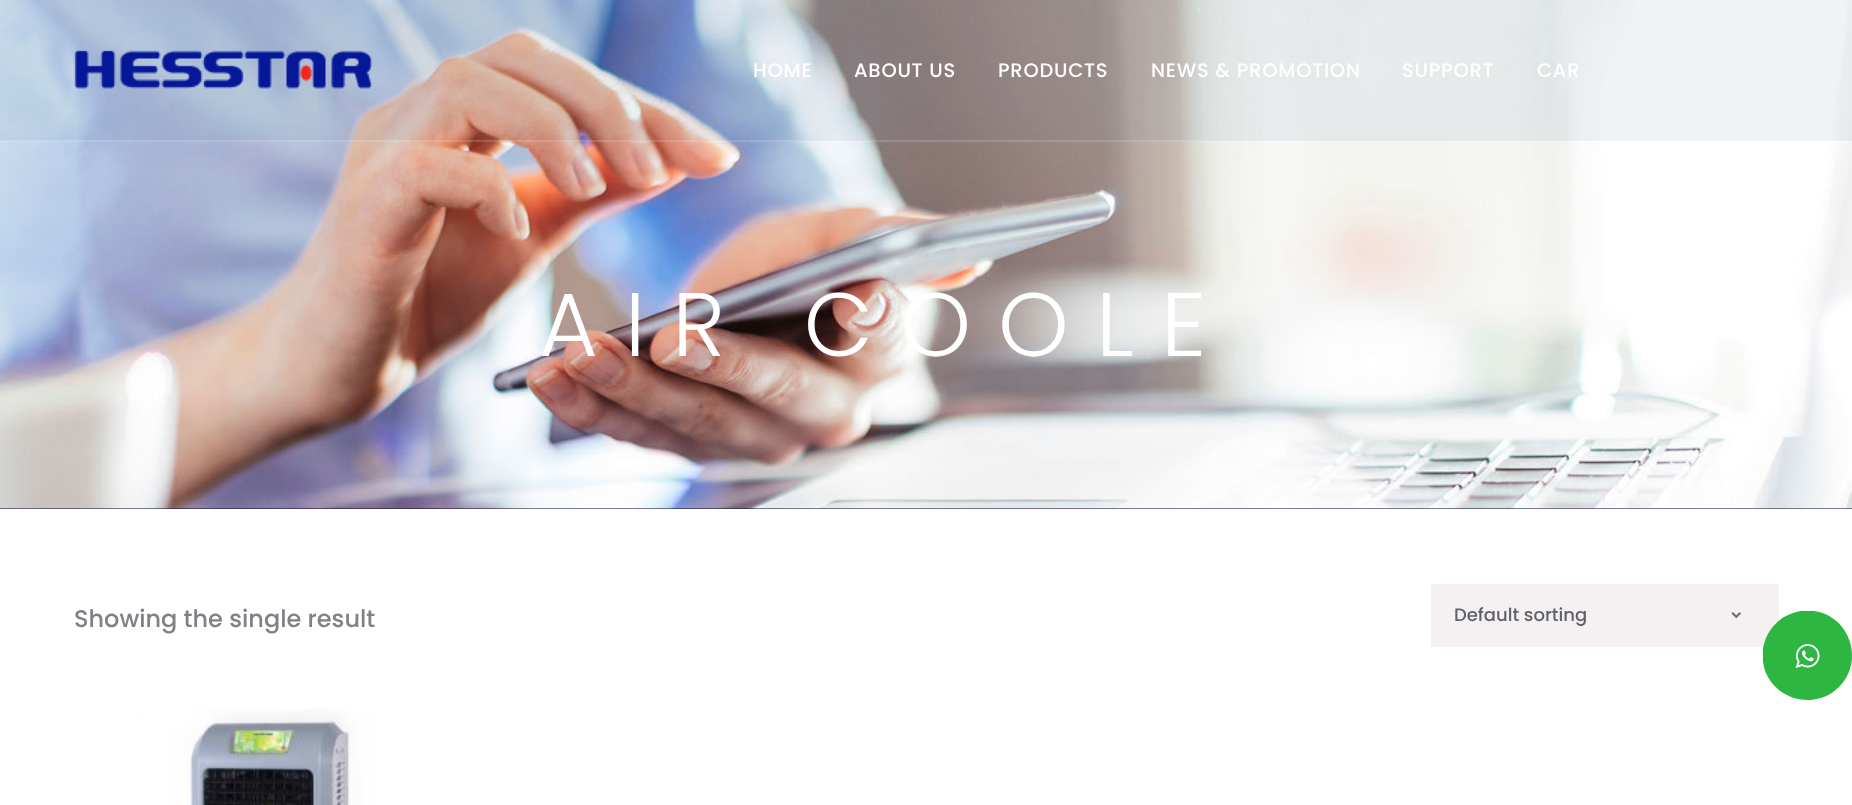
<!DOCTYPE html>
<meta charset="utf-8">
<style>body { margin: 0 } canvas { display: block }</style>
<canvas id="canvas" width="1852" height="805"></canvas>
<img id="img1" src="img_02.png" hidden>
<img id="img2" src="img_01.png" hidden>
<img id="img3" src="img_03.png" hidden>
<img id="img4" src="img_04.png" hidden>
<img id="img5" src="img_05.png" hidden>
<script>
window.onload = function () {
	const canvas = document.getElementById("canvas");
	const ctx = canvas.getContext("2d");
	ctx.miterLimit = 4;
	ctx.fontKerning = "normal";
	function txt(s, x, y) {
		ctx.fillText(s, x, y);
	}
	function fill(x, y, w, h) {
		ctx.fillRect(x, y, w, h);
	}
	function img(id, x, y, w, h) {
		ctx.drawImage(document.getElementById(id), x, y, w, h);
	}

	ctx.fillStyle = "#FFFFFF";
	fill(0, 0, 1852, 805);
	ctx.fillStyle = "#060326";
	fill(0, 508, 1852, 1);
	img("img1", 0, 0, 1852, 509);
	ctx.fillStyle = "rgba(111, 142, 165, 0.1)";
	fill(0, 0, 1852, 141);
	img("img2", 74, 50, 298, 39);
	ctx.fillStyle = "rgba(255, 255, 255, 0.15)";
	fill(0, 140, 1852, 2);
	ctx.fillStyle = "#F5F1F2";
	fill(1431, 584, 348, 63);
	img("img3", 1731, 612, 10, 7);
	img("img4", 74, 684, 376, 121);
	ctx.fillStyle = "#2DB742";
	ctx.beginPath();
	ctx.moveTo(1763, 649);
	ctx.bezierCurveTo(1766, 629, 1781, 614, 1801, 611);
	ctx.lineTo(1814, 611);
	ctx.bezierCurveTo(1836, 614, 1852, 633, 1852, 656);
	ctx.bezierCurveTo(1852, 680, 1832, 700, 1808, 700);
	ctx.bezierCurveTo(1785, 700, 1766, 684, 1763, 662);
	ctx.closePath();
	ctx.fill();
	img("img5", 1795, 644, 25, 24);
	ctx.letterSpacing = "0.75px";
	ctx.font = "500 19.5px Poppins";
	ctx.fillStyle = "#FFFFFF";
	txt("HOME", 753, 77);
	txt("ABOUT US", 854, 77);
	txt("PRODUCTS", 998, 77);
	txt("NEWS & PROMOTION", 1151, 77);
	txt("SUPPORT", 1402, 77);
	txt("CAR", 1537, 77);
	ctx.letterSpacing = "27px";
	ctx.font = "300 90px Poppins";
	txt("AIR COOLE", 539, 356);
	ctx.letterSpacing = "0px";
	ctx.font = "500 24px Poppins";
	ctx.fillStyle = "#7F8186";
	txt("Showing the single result", 74, 627);
	ctx.font = "500 18px Poppins";
	ctx.fillStyle = "#606269";
	txt("Default sorting", 1454, 621);
};
</script>
